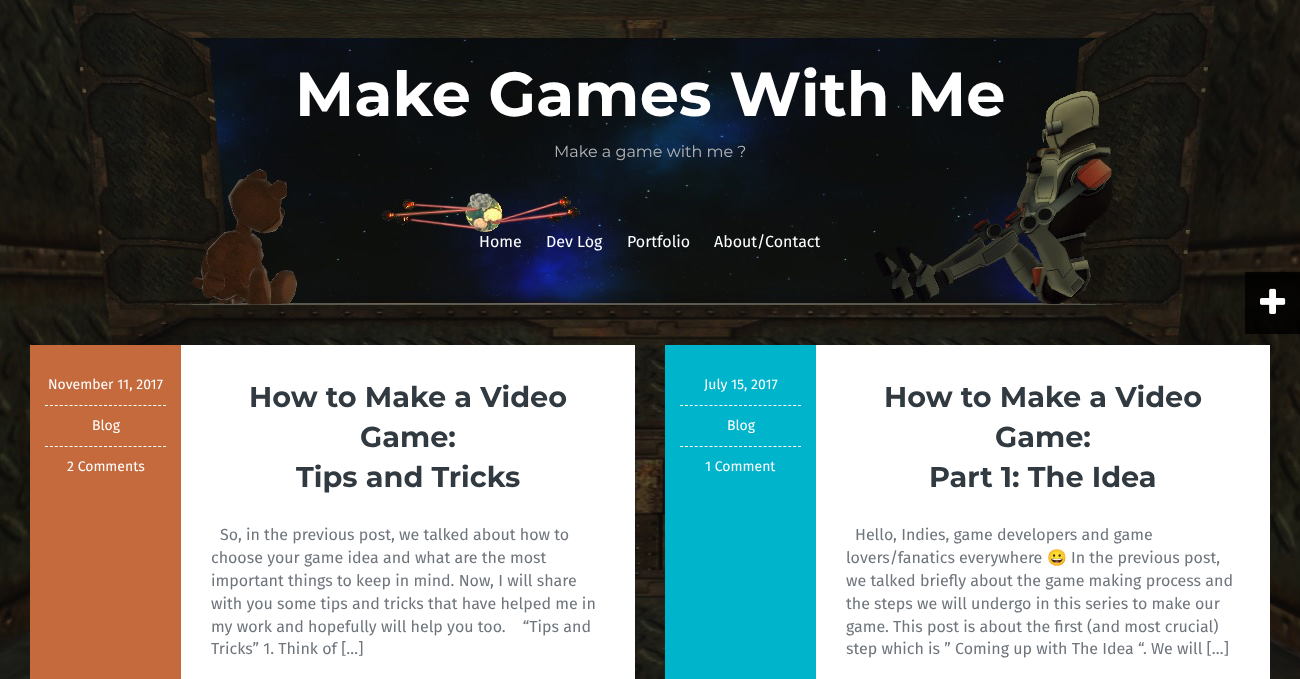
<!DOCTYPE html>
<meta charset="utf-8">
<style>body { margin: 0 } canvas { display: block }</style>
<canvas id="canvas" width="1300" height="679"></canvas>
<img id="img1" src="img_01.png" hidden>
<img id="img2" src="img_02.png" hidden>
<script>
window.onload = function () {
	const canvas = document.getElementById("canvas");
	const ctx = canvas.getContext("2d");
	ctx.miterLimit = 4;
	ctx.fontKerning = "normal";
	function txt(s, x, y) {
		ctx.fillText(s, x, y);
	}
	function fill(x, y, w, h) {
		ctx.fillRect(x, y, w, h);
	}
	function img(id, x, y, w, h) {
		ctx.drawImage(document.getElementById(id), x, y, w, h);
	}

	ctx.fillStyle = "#FFFFFF";
	fill(0, 0, 1300, 679);
	img("img1", 0, 0, 1300, 679);
	ctx.fillStyle = "rgba(0, 0, 0, 0.8)";
	fill(1245, 272, 55, 62);
	img("img2", 1260, 288, 26, 26);
	ctx.fillStyle = "#FFFFFF";
	fill(181, 345, 454, 334);
	ctx.fillStyle = "#C46A3C";
	fill(30, 345, 151, 334);
	ctx.beginPath();
	ctx.moveTo(45, 405.5);
	ctx.lineTo(166, 405.5);
	ctx.strokeStyle = "#FFFFFF";
	ctx.setLineDash([3, 1.92]);
	ctx.stroke();
	ctx.beginPath();
	ctx.moveTo(45, 446.5);
	ctx.lineTo(166, 446.5);
	ctx.stroke();
	ctx.fillStyle = "#FFFFFF";
	fill(816, 345, 454, 334);
	ctx.fillStyle = "#00B4CC";
	fill(665, 345, 151, 334);
	ctx.beginPath();
	ctx.moveTo(680, 405.5);
	ctx.lineTo(801, 405.5);
	ctx.stroke();
	ctx.beginPath();
	ctx.moveTo(680, 446.5);
	ctx.lineTo(801, 446.5);
	ctx.stroke();
	ctx.font = "bold 62px Montserrat";
	ctx.fillStyle = "#FFFFFF";
	txt("Make Games With Me", 295, 116);
	ctx.font = "16px Montserrat";
	ctx.fillStyle = "#B5B5B5";
	txt("Make a game with me ?", 554, 157);
	ctx.font = "16px Fira Sans";
	ctx.fillStyle = "#FFFFFF";
	txt("Home", 479, 247);
	txt("Dev Log", 546, 247);
	txt("Portfolio", 627, 247);
	txt("About/Contact", 714, 247);
	ctx.font = "14px Fira Sans";
	txt("November 11, 2017", 48, 389);
	txt("Blog", 92, 430);
	txt("2 Comments", 67, 471);
	ctx.font = "bold 28.75px Montserrat";
	ctx.fillStyle = "#323A41";
	txt("How to Make a Video", 249, 407);
	txt("Game:", 360, 447);
	txt("Tips and Tricks", 296, 487);
	ctx.font = "16px Fira Sans";
	ctx.fillStyle = "#6E757C";
	txt("So, in the previous post, we talked about how to", 220, 540);
	txt("choose your game idea and what are the most", 211, 563);
	txt("important things to keep in mind. Now, I will share", 211, 586);
	txt("with you some tips and tricks that have helped me in", 211, 609);
	txt("my work and hopefully will help you too.    “Tips and", 211, 632);
	txt("Tricks” 1. Think of […]", 211, 654);
	ctx.font = "14px Fira Sans";
	ctx.fillStyle = "#FFFFFF";
	txt("July 15, 2017", 704, 389);
	txt("Blog", 727, 430);
	txt("1 Comment", 705, 471);
	ctx.font = "bold 28.75px Montserrat";
	ctx.fillStyle = "#323A41";
	txt("How to Make a Video", 884, 407);
	txt("Game:", 995, 447);
	txt("Part 1: The Idea", 929, 487);
	ctx.font = "16px Fira Sans";
	ctx.fillStyle = "#6E757C";
	txt("Hello, Indies, game developers and game", 855, 540);
	txt("lovers/fanatics everywhere", 846, 563);
	ctx.font = "16px Noto Color Emoji";
	txt("😀", 1047, 563);
	ctx.font = "16px Fira Sans";
	txt("In the previous post,", 1071, 563);
	txt("we talked briefly about the game making process and", 846, 586);
	txt("the steps we will undergo in this series to make our", 846, 609);
	txt("game. This post is about the first (and most crucial)", 846, 632);
	txt("step which is ” Coming up with The Idea “. We will […]", 846, 654);
};
</script>
